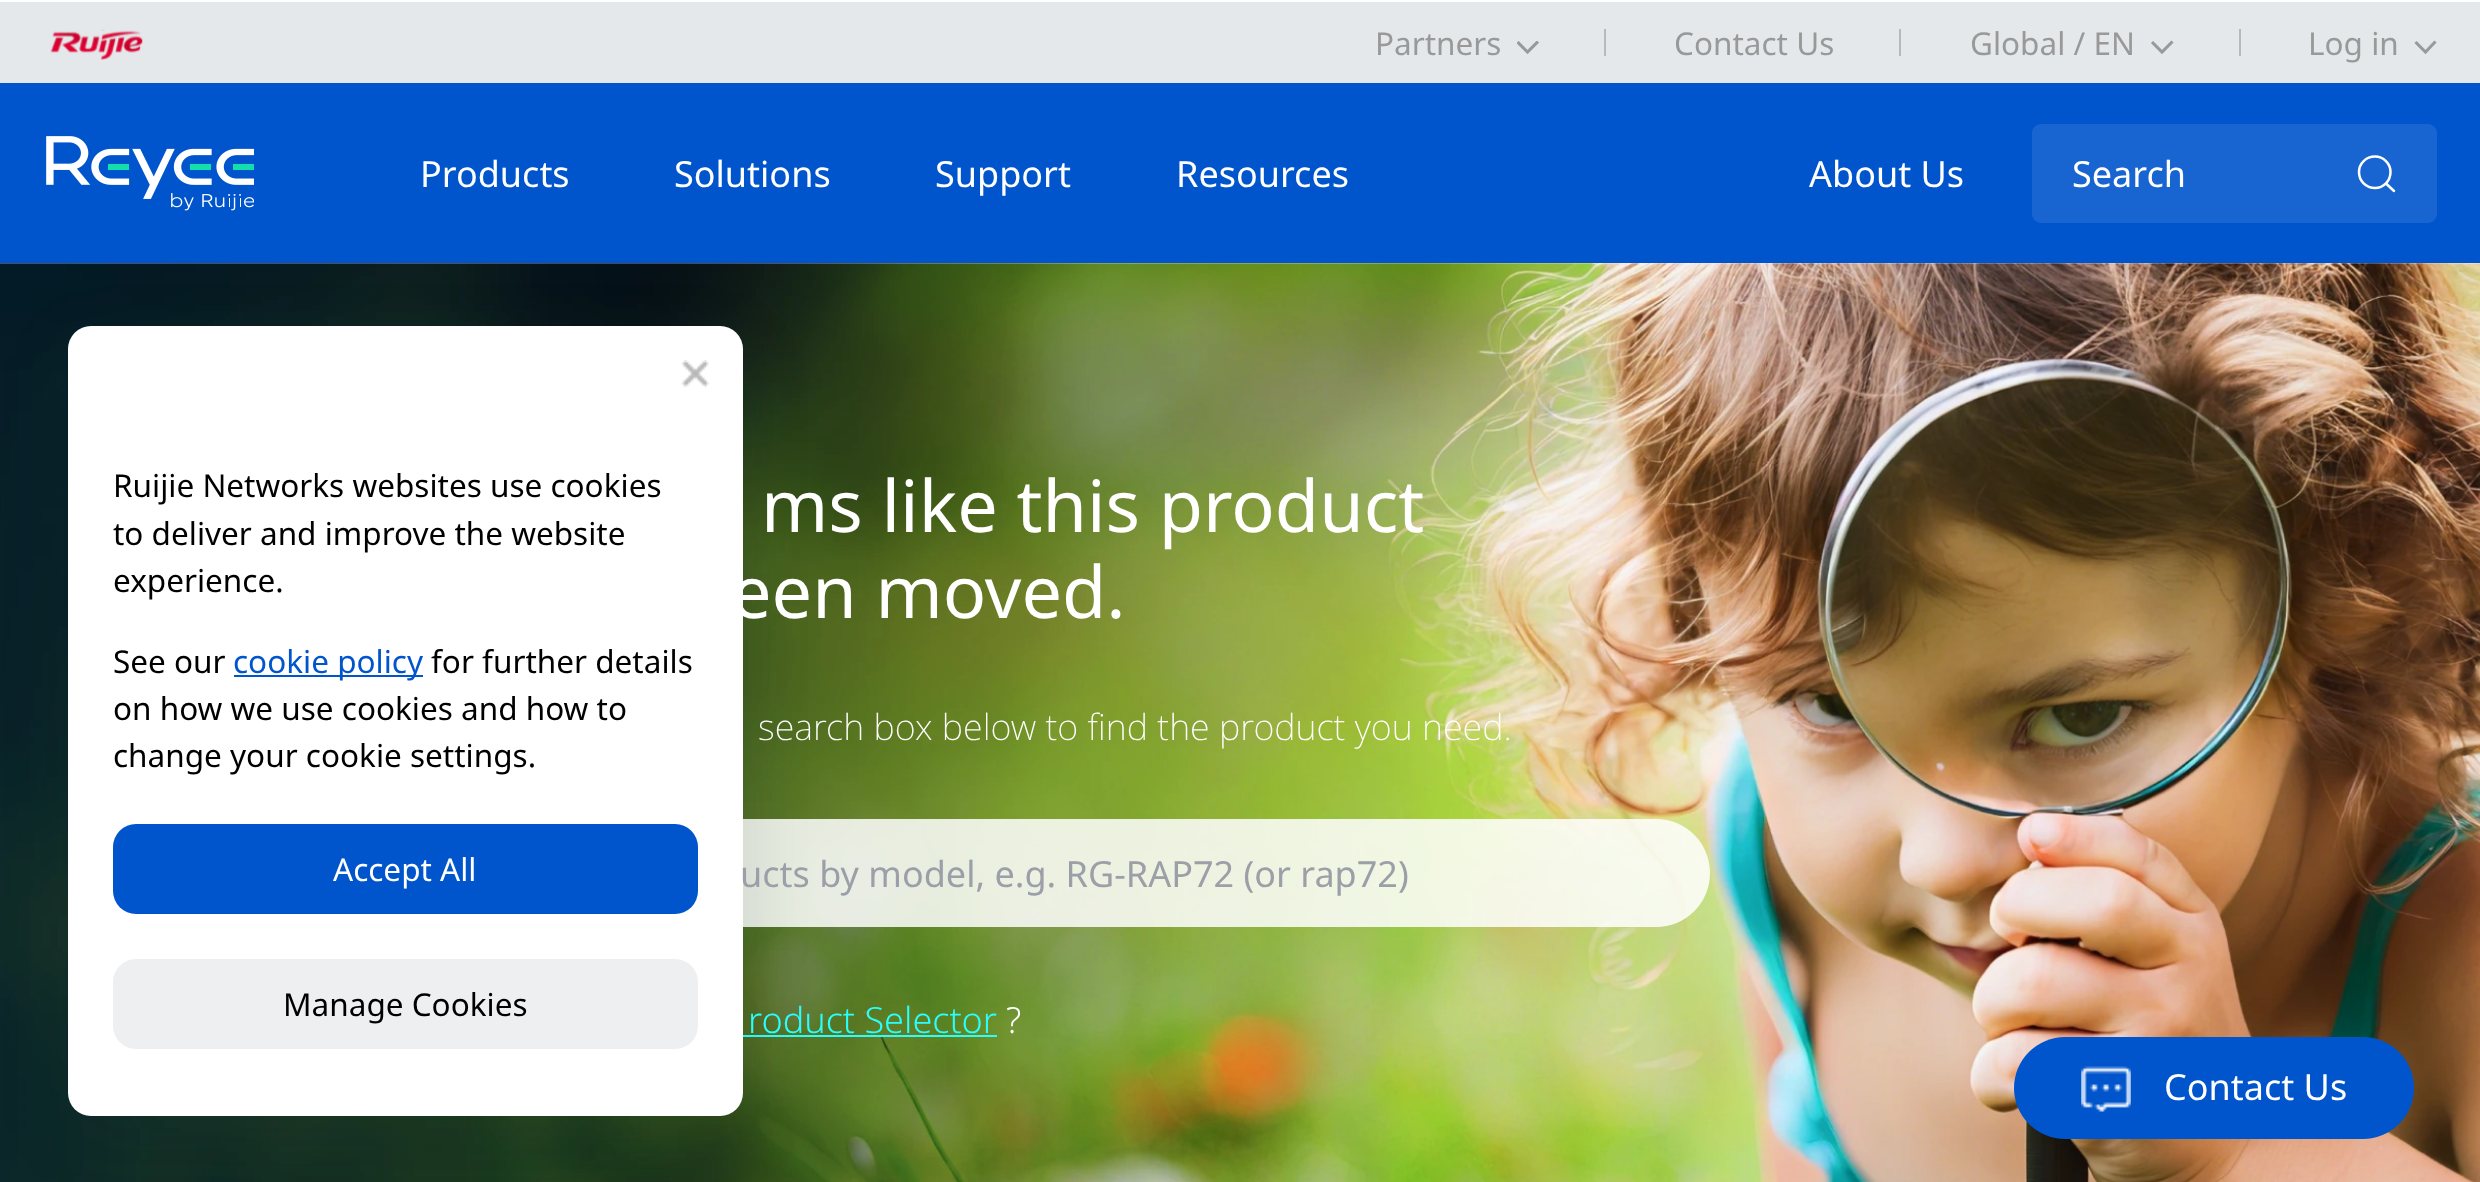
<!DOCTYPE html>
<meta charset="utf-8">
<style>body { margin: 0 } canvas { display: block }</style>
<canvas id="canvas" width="2480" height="1182"></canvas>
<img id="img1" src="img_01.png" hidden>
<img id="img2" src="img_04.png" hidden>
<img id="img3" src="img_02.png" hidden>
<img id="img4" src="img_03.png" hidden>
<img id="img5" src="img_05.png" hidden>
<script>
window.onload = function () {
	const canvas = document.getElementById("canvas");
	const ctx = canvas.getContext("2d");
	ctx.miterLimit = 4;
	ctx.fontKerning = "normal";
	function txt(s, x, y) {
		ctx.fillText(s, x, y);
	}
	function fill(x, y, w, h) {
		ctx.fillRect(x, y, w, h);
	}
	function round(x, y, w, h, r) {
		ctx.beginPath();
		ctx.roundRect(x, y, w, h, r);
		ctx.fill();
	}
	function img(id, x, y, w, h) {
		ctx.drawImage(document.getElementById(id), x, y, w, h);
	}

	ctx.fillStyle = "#FFFFFF";
	fill(0, 0, 2480, 1182);
	ctx.fillStyle = "#E4E8EB";
	fill(0, 2, 2480, 81);
	img("img1", 50, 29, 93, 31);
	ctx.save();
	ctx.beginPath();
	ctx.rect(1517, 41, 22, 13);
	ctx.clip();
	ctx.beginPath();
	ctx.moveTo(1517.5, 42);
	ctx.lineTo(1527.5, 52);
	ctx.lineTo(1538, 41.5);
	ctx.strokeStyle = "#999999";
	ctx.lineWidth = 3.1;
	ctx.stroke();
	ctx.restore();
	ctx.fillStyle = "#B6BABC";
	fill(1604, 29, 2, 27);
	fill(1899, 29, 2, 27);
	ctx.beginPath();
	ctx.moveTo(2152, 42);
	ctx.lineTo(2162, 52);
	ctx.lineTo(2172.5, 41.5);
	ctx.strokeStyle = "#999999";
	ctx.lineWidth = 3.1;
	ctx.stroke();
	fill(2239, 29, 2, 27);
	ctx.beginPath();
	ctx.moveTo(2415.5, 42);
	ctx.lineTo(2425.5, 52);
	ctx.lineTo(2435.5, 41.5);
	ctx.stroke();
	img("img2", 0, 263, 2480, 919);
	ctx.fillStyle = "rgba(255, 255, 255, 0.85)";
	round(360, 819, 1350, 108, 54);
	ctx.fillStyle = "#2AFFFF";
	fill(743, 1035, 254, 2);
	ctx.fillStyle = "rgba(10, 38, 59, 0.1)";
	ctx.filter = "blur(34px)";
	ctx.beginPath();
	ctx.roundRect(68, 349, 675, 790, 23);
	ctx.fill();
	ctx.filter = "none";
	ctx.fillStyle = "#0055CD";
	fill(0, 83, 2480, 180);
	img("img3", 46, 136, 208, 75);
	ctx.fillStyle = "#1865D1";
	round(2032, 124, 405, 99, 9);
	ctx.beginPath();
	ctx.moveTo(2375, 188);
	ctx.bezierCurveTo(2383.5, 188, 2390.5, 181, 2390.5, 172);
	ctx.bezierCurveTo(2390.5, 163.5, 2383.5, 156.5, 2375, 156.5);
	ctx.bezierCurveTo(2366, 156.5, 2359, 163.5, 2359, 172);
	ctx.bezierCurveTo(2359, 181, 2366, 188, 2375, 188);
	ctx.closePath();
	ctx.strokeStyle = "#FFFFFF";
	ctx.lineWidth = 2.5;
	ctx.lineJoin = "round";
	ctx.stroke();
	ctx.beginPath();
	ctx.moveTo(2386, 183.5);
	ctx.lineTo(2394, 191);
	ctx.lineCap = "round";
	ctx.stroke();
	ctx.fillStyle = "#FFFFFF";
	round(68, 326, 675, 790, 23);
	img("img4", 681, 360, 28, 27);
	ctx.fillStyle = "#0055CD";
	fill(234, 675, 189, 2);
	round(113, 824, 585, 90, 23);
	ctx.fillStyle = "#EEEFF0";
	round(113, 959, 585, 90, 23);
	ctx.fillStyle = "#0055CD";
	round(2014, 1037, 400, 102, 51);
	img("img5", 2081, 1066, 50, 46);
	ctx.font = "31.5px Noto Sans";
	ctx.fillStyle = "#999999";
	txt("Partners", 1375, 55);
	txt("Contact Us", 1674, 55);
	txt("Global / EN", 1970, 55);
	txt("Log in", 2308, 55);
	ctx.font = "36px Noto Sans";
	ctx.fillStyle = "#FFFFFF";
	txt("Products", 420, 187);
	txt("Solutions", 674, 187);
	txt("Support", 935, 187);
	txt("Resources", 1176, 187);
	txt("About Us", 1809, 187);
	txt("Search", 2072, 187);
	ctx.font = "31.5px Noto Sans";
	ctx.fillStyle = "#000000";
	txt("Ruijie Networks websites use cookies", 113, 497);
	txt("to deliver and improve the website", 113, 545);
	txt("experience.", 113, 592);
	txt("See our", 113, 673);
	ctx.fillStyle = "#0055CD";
	txt("cookie policy", 233, 673);
	ctx.fillStyle = "#000000";
	txt("for further details", 431, 673);
	txt("on how we use cookies and how to", 113, 720);
	txt("change your cookie settings.", 113, 767);
	ctx.fillStyle = "#FFFFFF";
	txt("Accept All", 333, 881);
	ctx.fillStyle = "#000000";
	txt("Manage Cookies", 283, 1016);
	ctx.font = "72px Noto Sans";
	ctx.fillStyle = "#FFFFFF";
	txt("ms like this product", 761, 532);
	txt("een moved.", 731, 618);
	ctx.font = "200 36px Noto Sans";
	txt("search box below to find the product you need.", 758, 740);
	ctx.font = "36px Noto Sans";
	ctx.fillStyle = "#9B9FA8";
	txt("ucts by model, e.g. RG-RAP72 (or rap72)", 740, 887);
	ctx.font = "300 36px Noto Sans";
	ctx.fillStyle = "#2AFFFF";
	txt("roduct Selector", 748, 1033);
	ctx.fillStyle = "#FFFFFF";
	txt("?", 1006, 1033);
	ctx.font = "36px Noto Sans";
	txt("Contact Us", 2164, 1100);
};
</script>
